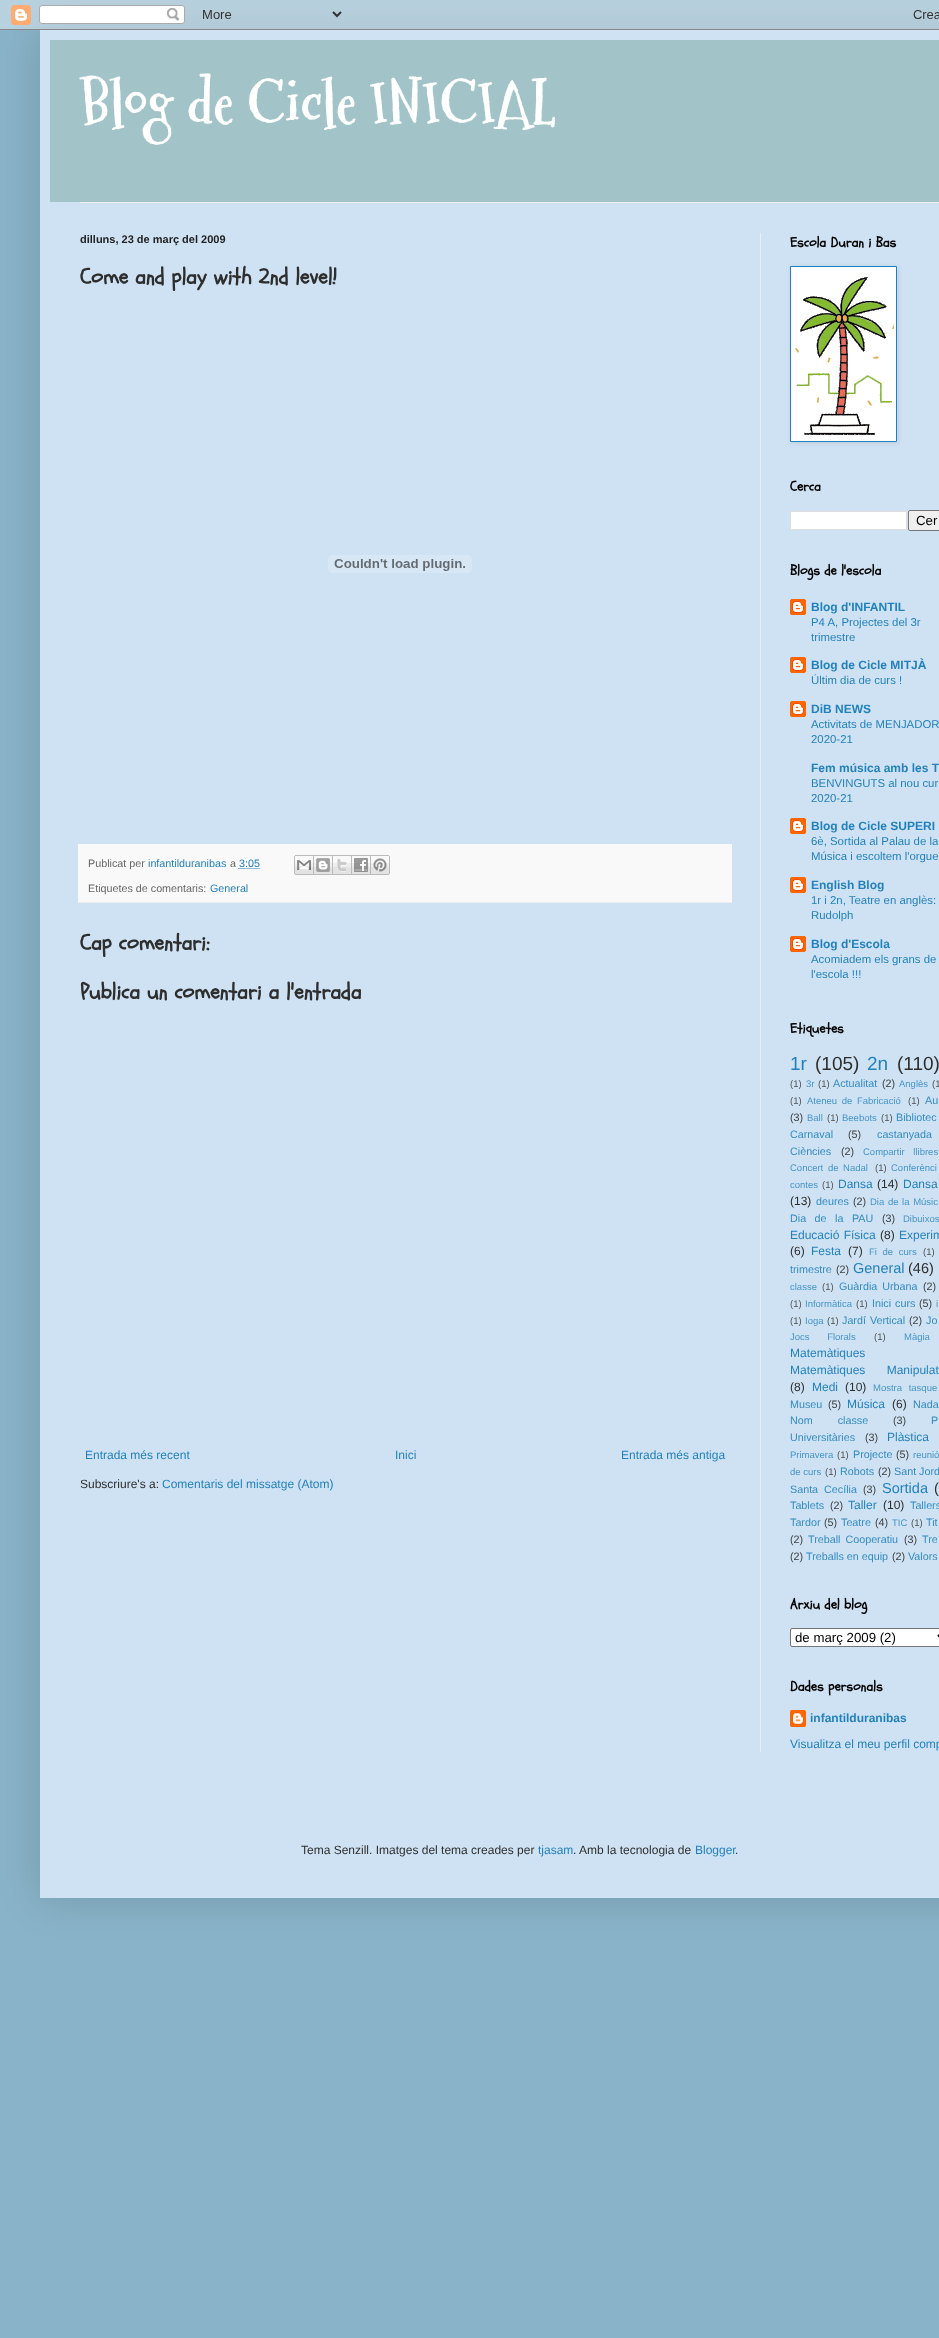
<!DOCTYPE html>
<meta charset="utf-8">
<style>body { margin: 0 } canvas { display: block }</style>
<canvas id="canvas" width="939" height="2338"></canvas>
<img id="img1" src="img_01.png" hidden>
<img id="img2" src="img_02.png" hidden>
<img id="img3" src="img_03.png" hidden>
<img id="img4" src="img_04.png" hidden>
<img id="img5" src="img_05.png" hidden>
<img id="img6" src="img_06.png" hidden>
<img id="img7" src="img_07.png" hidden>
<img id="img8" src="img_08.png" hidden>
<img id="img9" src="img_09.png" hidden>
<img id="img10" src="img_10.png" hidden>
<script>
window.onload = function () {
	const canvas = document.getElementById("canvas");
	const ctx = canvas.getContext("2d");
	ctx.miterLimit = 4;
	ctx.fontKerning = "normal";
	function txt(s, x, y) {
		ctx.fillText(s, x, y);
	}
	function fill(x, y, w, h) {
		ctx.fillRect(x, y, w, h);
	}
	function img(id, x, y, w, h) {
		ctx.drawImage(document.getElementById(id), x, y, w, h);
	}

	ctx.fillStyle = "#89B3C9";
	fill(0, 0, 939, 2338);
	ctx.fillStyle = "rgba(0, 0, 0, 0.15)";
	ctx.filter = "blur(20px)";
	ctx.beginPath();
	ctx.rect(40, 30, 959, 1868);
	ctx.fill();
	ctx.filter = "none";
	img("img1", 0, 0, 939, 30);
	ctx.fillStyle = "#CFE2F3";
	fill(40, 30, 899, 1868);
	ctx.fillStyle = "#A2C4C9";
	fill(50, 40, 889, 162);
	ctx.fillStyle = "#EEEEEE";
	fill(80, 202, 859, 1);
	fill(760, 233, 1, 1519);
	img("img2", 328, 555, 144, 18);
	ctx.fillStyle = "#F9F9F9";
	fill(78, 844, 654, 58);
	ctx.fillStyle = "#EEEEEE";
	fill(78, 902, 654, 1);
	ctx.beginPath();
	ctx.moveTo(238.5, 868.5);
	ctx.lineTo(259.5, 868.5);
	ctx.strokeStyle = "#2281BD";
	ctx.setLineDash([1, 1]);
	ctx.stroke();
	img("img3", 294, 855, 20, 20);
	img("img4", 314, 855, 19, 20);
	img("img5", 333, 855, 19, 20);
	img("img6", 352, 855, 19, 20);
	img("img7", 371, 855, 19, 20);
	ctx.fillStyle = "rgba(0, 0, 0, 0.1)";
	ctx.filter = "blur(2.5px)";
	ctx.beginPath();
	ctx.rect(791, 267, 107, 176);
	ctx.fill();
	ctx.filter = "none";
	ctx.fillStyle = "#FFFFFF";
	ctx.beginPath();
	ctx.rect(790.5, 266.5, 106, 175);
	ctx.fill();
	ctx.setLineDash([]);
	ctx.stroke();
	img("img8", 795, 277, 99, 158);
	ctx.beginPath();
	ctx.rect(790.5, 511.5, 116, 18);
	ctx.fill();
	ctx.strokeStyle = "#DDDDDD";
	ctx.stroke();
	ctx.fillStyle = "#EFEFEF";
	ctx.beginPath();
	ctx.roundRect(908.5, 510.5, 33, 20, 1.5);
	ctx.fill();
	ctx.strokeStyle = "#767676";
	ctx.stroke();
	img("img9", 790, 599, 16, 16);
	img("img9", 790, 657, 16, 16);
	img("img9", 790, 701, 16, 16);
	img("img9", 790, 818, 16, 16);
	img("img9", 790, 877, 16, 16);
	img("img9", 790, 936, 16, 16);
	ctx.fillStyle = "#FFFFFF";
	ctx.beginPath();
	ctx.roundRect(790.5, 1628.5, 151, 18, 1.5);
	ctx.fill();
	ctx.stroke();
	ctx.beginPath();
	ctx.moveTo(938, 1635);
	ctx.lineTo(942, 1639);
	ctx.lineTo(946, 1635);
	ctx.strokeStyle = "#000000";
	ctx.lineWidth = 2;
	ctx.stroke();
	img("img10", 790, 1710, 16, 17);
	ctx.font = "bold 60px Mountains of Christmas";
	txt("Blog de Cicle INICIAL", 80, 124);
	ctx.font = "bold 11px Liberation Sans";
	ctx.fillStyle = "#222222";
	txt("dilluns, 23 de març del 2009", 80, 243);
	ctx.font = "bold 22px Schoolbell";
	ctx.fillStyle = "#2E2E2E";
	txt("Come and play with 2nd level!", 80, 284);
	ctx.font = "10.75px Liberation Sans";
	ctx.fillStyle = "#676767";
	txt("Publicat per", 88, 867);
	ctx.fillStyle = "#2281BD";
	txt("infantilduranibas", 148, 867);
	ctx.fillStyle = "#676767";
	txt("a", 230, 867);
	ctx.fillStyle = "#2281BD";
	txt("3:05", 239, 867);
	ctx.fillStyle = "#676767";
	txt("Etiquetes de comentaris:", 88, 892);
	ctx.fillStyle = "#2281BD";
	txt("General", 210, 892);
	ctx.font = "bold 22px Schoolbell";
	ctx.fillStyle = "#2E2E2E";
	txt("Cap comentari:", 80, 950);
	txt("Publica un comentari a l'entrada", 80, 999);
	ctx.font = "12px Liberation Sans";
	ctx.fillStyle = "#2281BD";
	txt("Entrada més recent", 85, 1459);
	txt("Inici", 395, 1459);
	txt("Entrada més antiga", 621, 1459);
	ctx.fillStyle = "#2E2E2E";
	txt("Subscriure's a:", 80, 1488);
	ctx.fillStyle = "#2281BD";
	txt("Comentaris del missatge (Atom)", 162, 1488);
	ctx.font = "bold 14px Schoolbell";
	ctx.fillStyle = "#000000";
	txt("Escola Duran i Bas", 790, 247);
	txt("Cerca", 790, 491);
	ctx.font = "13.25px Liberation Sans";
	txt("Cer", 916, 525);
	ctx.font = "bold 14px Schoolbell";
	txt("Blogs de l'escola", 790, 575);
	ctx.font = "bold 12px Liberation Sans";
	ctx.fillStyle = "#2281BD";
	txt("Blog d'INFANTIL", 811, 611);
	ctx.font = "11.4px Liberation Sans";
	txt("P4 A, Projectes del 3r", 811, 626);
	txt("trimestre", 811, 641);
	ctx.font = "bold 12px Liberation Sans";
	txt("Blog de Cicle MITJÀ", 811, 669);
	ctx.font = "11.4px Liberation Sans";
	txt("Últim dia de curs !", 811, 684);
	ctx.font = "bold 12px Liberation Sans";
	txt("DiB NEWS", 811, 713);
	ctx.font = "11.4px Liberation Sans";
	txt("Activitats de MENJADOR", 811, 728);
	txt("2020-21", 811, 743);
	ctx.font = "bold 12px Liberation Sans";
	txt("Fem música amb les T", 811, 772);
	ctx.font = "11.4px Liberation Sans";
	txt("BENVINGUTS al nou cur", 811, 787);
	txt("2020-21", 811, 802);
	ctx.font = "bold 12px Liberation Sans";
	txt("Blog de Cicle SUPERI", 811, 830);
	ctx.font = "11.4px Liberation Sans";
	txt("6è, Sortida al Palau de la", 811, 845);
	txt("Música i escoltem l'orgue", 811, 860);
	ctx.font = "bold 12px Liberation Sans";
	txt("English Blog", 811, 889);
	ctx.font = "11.4px Liberation Sans";
	txt("1r i 2n, Teatre en anglès:", 811, 904);
	txt("Rudolph", 811, 919);
	ctx.font = "bold 12px Liberation Sans";
	txt("Blog d'Escola", 811, 948);
	ctx.font = "11.4px Liberation Sans";
	txt("Acomiadem els grans de", 811, 963);
	txt("l'escola !!!", 811, 978);
	ctx.font = "bold 14px Schoolbell";
	ctx.fillStyle = "#000000";
	txt("Etiquetes", 790, 1033);
	ctx.font = "19px Liberation Sans";
	ctx.fillStyle = "#2281BD";
	txt("1r", 790, 1070);
	ctx.fillStyle = "#2E2E2E";
	txt("(105)", 815, 1070);
	ctx.fillStyle = "#2281BD";
	txt("2n", 867, 1070);
	ctx.fillStyle = "#2E2E2E";
	txt("(110)", 897, 1070);
	ctx.font = "9.5px Liberation Sans";
	ctx.fillStyle = "#4E5255";
	txt("(1)", 790, 1087);
	ctx.fillStyle = "#4594C8";
	txt("3r", 806, 1087);
	ctx.fillStyle = "#4E5255";
	txt("(1)", 818, 1087);
	ctx.font = "10.75px Liberation Sans";
	ctx.fillStyle = "#338BC2";
	txt("Actualitat", 833, 1087);
	ctx.fillStyle = "#3E4042";
	txt("(2)", 882, 1087);
	ctx.font = "9.5px Liberation Sans";
	ctx.fillStyle = "#4594C8";
	txt("Anglès", 899, 1087);
	ctx.fillStyle = "#4E5255";
	txt("(1", 932, 1087);
	txt("(1)", 790, 1104);
	ctx.wordSpacing = "2px";
	ctx.fillStyle = "#4594C8";
	txt("Ateneu de Fabricació", 807, 1104);
	ctx.wordSpacing = "0px";
	ctx.fillStyle = "#4E5255";
	txt("(1)", 908, 1104);
	ctx.font = "10.75px Liberation Sans";
	ctx.fillStyle = "#338BC2";
	txt("Au", 925, 1104);
	ctx.fillStyle = "#3E4042";
	txt("(3)", 790, 1121);
	ctx.font = "9.5px Liberation Sans";
	ctx.fillStyle = "#4594C8";
	txt("Ball", 807, 1121);
	ctx.fillStyle = "#4E5255";
	txt("(1)", 827, 1121);
	ctx.fillStyle = "#4594C8";
	txt("Beebots", 842, 1121);
	ctx.fillStyle = "#4E5255";
	txt("(1)", 881, 1121);
	ctx.font = "10.75px Liberation Sans";
	ctx.fillStyle = "#338BC2";
	txt("Bibliotec", 896, 1121);
	txt("Carnaval", 790, 1138);
	ctx.fillStyle = "#3E4042";
	txt("(5)", 848, 1138);
	ctx.fillStyle = "#338BC2";
	txt("castanyada", 877, 1138);
	txt("Ciències", 790, 1155);
	ctx.fillStyle = "#3E4042";
	txt("(2)", 841, 1155);
	ctx.wordSpacing = "6px";
	ctx.font = "9.5px Liberation Sans";
	ctx.fillStyle = "#4594C8";
	txt("Compartir llibres", 863, 1155);
	ctx.wordSpacing = "2px";
	txt("Concert de Nadal", 790, 1171);
	ctx.wordSpacing = "0px";
	ctx.fillStyle = "#4E5255";
	txt("(1)", 875, 1171);
	ctx.fillStyle = "#4594C8";
	txt("Conferènci", 891, 1171);
	txt("contes", 790, 1188);
	ctx.fillStyle = "#4E5255";
	txt("(1)", 822, 1188);
	ctx.font = "12px Liberation Sans";
	ctx.fillStyle = "#2281BD";
	txt("Dansa", 838, 1188);
	ctx.fillStyle = "#2E2E2E";
	txt("(14)", 877, 1188);
	ctx.wordSpacing = "1px";
	ctx.fillStyle = "#2281BD";
	txt("Dansa", 903, 1188);
	ctx.wordSpacing = "0px";
	ctx.fillStyle = "#2E2E2E";
	txt("(13)", 790, 1205);
	ctx.font = "10.75px Liberation Sans";
	ctx.fillStyle = "#338BC2";
	txt("deures", 816, 1205);
	ctx.fillStyle = "#3E4042";
	txt("(2)", 853, 1205);
	ctx.wordSpacing = "1px";
	ctx.font = "9.5px Liberation Sans";
	ctx.fillStyle = "#4594C8";
	txt("Dia de la Músic", 870, 1205);
	ctx.wordSpacing = "5.5px";
	ctx.font = "10.75px Liberation Sans";
	ctx.fillStyle = "#338BC2";
	txt("Dia de la PAU", 790, 1222);
	ctx.wordSpacing = "0px";
	ctx.fillStyle = "#3E4042";
	txt("(3)", 882, 1222);
	ctx.font = "9.5px Liberation Sans";
	ctx.fillStyle = "#4594C8";
	txt("Dibuixos", 903, 1222);
	ctx.wordSpacing = "1px";
	ctx.font = "12px Liberation Sans";
	ctx.fillStyle = "#2281BD";
	txt("Educació Física", 790, 1239);
	ctx.wordSpacing = "0px";
	ctx.fillStyle = "#2E2E2E";
	txt("(8)", 880, 1239);
	ctx.fillStyle = "#2281BD";
	txt("Experim", 899, 1239);
	ctx.fillStyle = "#2E2E2E";
	txt("(6)", 790, 1255);
	ctx.fillStyle = "#2281BD";
	txt("Festa", 811, 1255);
	ctx.fillStyle = "#2E2E2E";
	txt("(7)", 848, 1255);
	ctx.wordSpacing = "3px";
	ctx.font = "9.5px Liberation Sans";
	ctx.fillStyle = "#4594C8";
	txt("Fi de curs", 869, 1255);
	ctx.wordSpacing = "0px";
	ctx.fillStyle = "#4E5255";
	txt("(1)", 923, 1255);
	ctx.font = "10.75px Liberation Sans";
	ctx.fillStyle = "#338BC2";
	txt("trimestre", 790, 1273);
	ctx.fillStyle = "#3E4042";
	txt("(2)", 836, 1273);
	ctx.font = "14.5px Liberation Sans";
	ctx.fillStyle = "#2281BD";
	txt("General", 853, 1273);
	ctx.fillStyle = "#2E2E2E";
	txt("(46)", 908, 1273);
	ctx.font = "9.5px Liberation Sans";
	ctx.fillStyle = "#4594C8";
	txt("classe", 790, 1290);
	ctx.fillStyle = "#4E5255";
	txt("(1)", 822, 1290);
	ctx.wordSpacing = "2px";
	ctx.font = "10.75px Liberation Sans";
	ctx.fillStyle = "#338BC2";
	txt("Guàrdia Urbana", 839, 1290);
	ctx.wordSpacing = "0px";
	ctx.fillStyle = "#3E4042";
	txt("(2)", 923, 1290);
	ctx.font = "9.5px Liberation Sans";
	ctx.fillStyle = "#4E5255";
	txt("(1)", 790, 1307);
	ctx.fillStyle = "#4594C8";
	txt("Informàtica", 805, 1307);
	ctx.fillStyle = "#4E5255";
	txt("(1)", 856, 1307);
	ctx.wordSpacing = "1px";
	ctx.font = "10.75px Liberation Sans";
	ctx.fillStyle = "#338BC2";
	txt("Inici curs", 872, 1307);
	ctx.wordSpacing = "0px";
	ctx.fillStyle = "#3E4042";
	txt("(5)", 919, 1307);
	ctx.font = "9.5px Liberation Sans";
	ctx.fillStyle = "#4594C8";
	txt("i", 936, 1307);
	ctx.fillStyle = "#4E5255";
	txt("(1)", 790, 1324);
	ctx.fillStyle = "#4594C8";
	txt("Ioga", 805, 1324);
	ctx.fillStyle = "#4E5255";
	txt("(1)", 827, 1324);
	ctx.wordSpacing = "1px";
	ctx.font = "10.75px Liberation Sans";
	ctx.fillStyle = "#338BC2";
	txt("Jardí Vertical", 842, 1324);
	ctx.wordSpacing = "0px";
	ctx.fillStyle = "#3E4042";
	txt("(2)", 909, 1324);
	ctx.fillStyle = "#338BC2";
	txt("Jo", 926, 1324);
	ctx.wordSpacing = "15px";
	ctx.font = "9.5px Liberation Sans";
	ctx.fillStyle = "#4594C8";
	txt("Jocs Florals", 790, 1340);
	ctx.wordSpacing = "0px";
	ctx.fillStyle = "#4E5255";
	txt("(1)", 874, 1340);
	ctx.fillStyle = "#4594C8";
	txt("Màgia", 904, 1340);
	ctx.font = "12px Liberation Sans";
	ctx.fillStyle = "#2281BD";
	txt("Matemàtiques", 790, 1357);
	ctx.wordSpacing = "18px";
	txt("Matemàtiques Manipulat", 790, 1374);
	ctx.wordSpacing = "0px";
	ctx.fillStyle = "#2E2E2E";
	txt("(8)", 790, 1391);
	ctx.fillStyle = "#2281BD";
	txt("Medi", 812, 1391);
	ctx.fillStyle = "#2E2E2E";
	txt("(10)", 845, 1391);
	ctx.wordSpacing = "4px";
	ctx.font = "9.5px Liberation Sans";
	ctx.fillStyle = "#4594C8";
	txt("Mostra tasque", 873, 1391);
	ctx.wordSpacing = "0px";
	ctx.font = "10.75px Liberation Sans";
	ctx.fillStyle = "#338BC2";
	txt("Museu", 790, 1408);
	ctx.fillStyle = "#3E4042";
	txt("(5)", 828, 1408);
	ctx.font = "12px Liberation Sans";
	ctx.fillStyle = "#2281BD";
	txt("Música", 847, 1408);
	ctx.fillStyle = "#2E2E2E";
	txt("(6)", 892, 1408);
	ctx.font = "10.75px Liberation Sans";
	ctx.fillStyle = "#338BC2";
	txt("Nada", 913, 1408);
	ctx.wordSpacing = "22px";
	txt("Nom classe", 790, 1424);
	ctx.wordSpacing = "0px";
	ctx.fillStyle = "#3E4042";
	txt("(3)", 893, 1424);
	ctx.fillStyle = "#338BC2";
	txt("P", 931, 1424);
	txt("Universitàries", 790, 1441);
	ctx.fillStyle = "#3E4042";
	txt("(3)", 865, 1441);
	ctx.font = "12px Liberation Sans";
	ctx.fillStyle = "#2281BD";
	txt("Plàstica", 887, 1441);
	ctx.font = "9.5px Liberation Sans";
	ctx.fillStyle = "#4594C8";
	txt("Primavera", 790, 1458);
	ctx.fillStyle = "#4E5255";
	txt("(1)", 837, 1458);
	ctx.font = "10.75px Liberation Sans";
	ctx.fillStyle = "#338BC2";
	txt("Projecte", 853, 1458);
	ctx.fillStyle = "#3E4042";
	txt("(5)", 896, 1458);
	ctx.wordSpacing = "1px";
	ctx.font = "9.5px Liberation Sans";
	ctx.fillStyle = "#4594C8";
	txt("reunió", 913, 1458);
	ctx.wordSpacing = "0px";
	txt("de curs", 790, 1475);
	ctx.fillStyle = "#4E5255";
	txt("(1)", 825, 1475);
	ctx.font = "10.75px Liberation Sans";
	ctx.fillStyle = "#338BC2";
	txt("Robots", 840, 1475);
	ctx.fillStyle = "#3E4042";
	txt("(2)", 878, 1475);
	ctx.fillStyle = "#338BC2";
	txt("Sant Jord", 894, 1475);
	ctx.wordSpacing = "3px";
	txt("Santa Cecília", 790, 1493);
	ctx.wordSpacing = "0px";
	ctx.fillStyle = "#3E4042";
	txt("(3)", 863, 1493);
	ctx.font = "14.5px Liberation Sans";
	ctx.fillStyle = "#2281BD";
	txt("Sortida", 882, 1493);
	ctx.fillStyle = "#2E2E2E";
	txt("(", 934, 1493);
	ctx.font = "10.75px Liberation Sans";
	ctx.fillStyle = "#338BC2";
	txt("Tablets", 790, 1509);
	ctx.fillStyle = "#3E4042";
	txt("(2)", 830, 1509);
	ctx.font = "12px Liberation Sans";
	ctx.fillStyle = "#2281BD";
	txt("Taller", 848, 1509);
	ctx.fillStyle = "#2E2E2E";
	txt("(10)", 883, 1509);
	ctx.font = "10.75px Liberation Sans";
	ctx.fillStyle = "#338BC2";
	txt("Tallers", 910, 1509);
	txt("Tardor", 790, 1526);
	ctx.fillStyle = "#3E4042";
	txt("(5)", 824, 1526);
	ctx.fillStyle = "#338BC2";
	txt("Teatre", 841, 1526);
	ctx.fillStyle = "#3E4042";
	txt("(4)", 875, 1526);
	ctx.font = "9.5px Liberation Sans";
	ctx.fillStyle = "#4594C8";
	txt("TIC", 892, 1526);
	ctx.fillStyle = "#4E5255";
	txt("(1)", 911, 1526);
	ctx.font = "10.75px Liberation Sans";
	ctx.fillStyle = "#338BC2";
	txt("Tit", 926, 1526);
	ctx.fillStyle = "#3E4042";
	txt("(2)", 790, 1543);
	ctx.wordSpacing = "2px";
	ctx.fillStyle = "#338BC2";
	txt("Treball Cooperatiu", 808, 1543);
	ctx.wordSpacing = "0px";
	ctx.fillStyle = "#3E4042";
	txt("(3)", 904, 1543);
	ctx.fillStyle = "#338BC2";
	txt("Tre", 922, 1543);
	ctx.fillStyle = "#3E4042";
	txt("(2)", 790, 1560);
	ctx.fillStyle = "#338BC2";
	txt("Treballs en equip", 806, 1560);
	ctx.fillStyle = "#3E4042";
	txt("(2)", 892, 1560);
	ctx.fillStyle = "#338BC2";
	txt("Valors", 908, 1560);
	ctx.font = "bold 14px Schoolbell";
	ctx.fillStyle = "#000000";
	txt("Arxiu del blog", 790, 1609);
	ctx.font = "13.25px Liberation Sans";
	txt("de març 2009 (2)", 795, 1642);
	ctx.font = "bold 14px Schoolbell";
	txt("Dades personals", 790, 1691);
	ctx.font = "bold 12px Liberation Sans";
	ctx.fillStyle = "#2281BD";
	txt("infantilduranibas", 810, 1722);
	ctx.font = "12px Liberation Sans";
	txt("Visualitza el meu perfil comp", 790, 1748);
	ctx.fillStyle = "#2E2E2E";
	txt("Tema Senzill. Imatges del tema creades per", 301, 1854);
	ctx.fillStyle = "#2281BD";
	txt("tjasam", 538, 1854);
	ctx.fillStyle = "#2E2E2E";
	txt(". Amb la tecnologia de", 573, 1854);
	ctx.fillStyle = "#2281BD";
	txt("Blogger", 695, 1854);
	ctx.fillStyle = "#2E2E2E";
	txt(".", 735, 1854);
};
</script>
